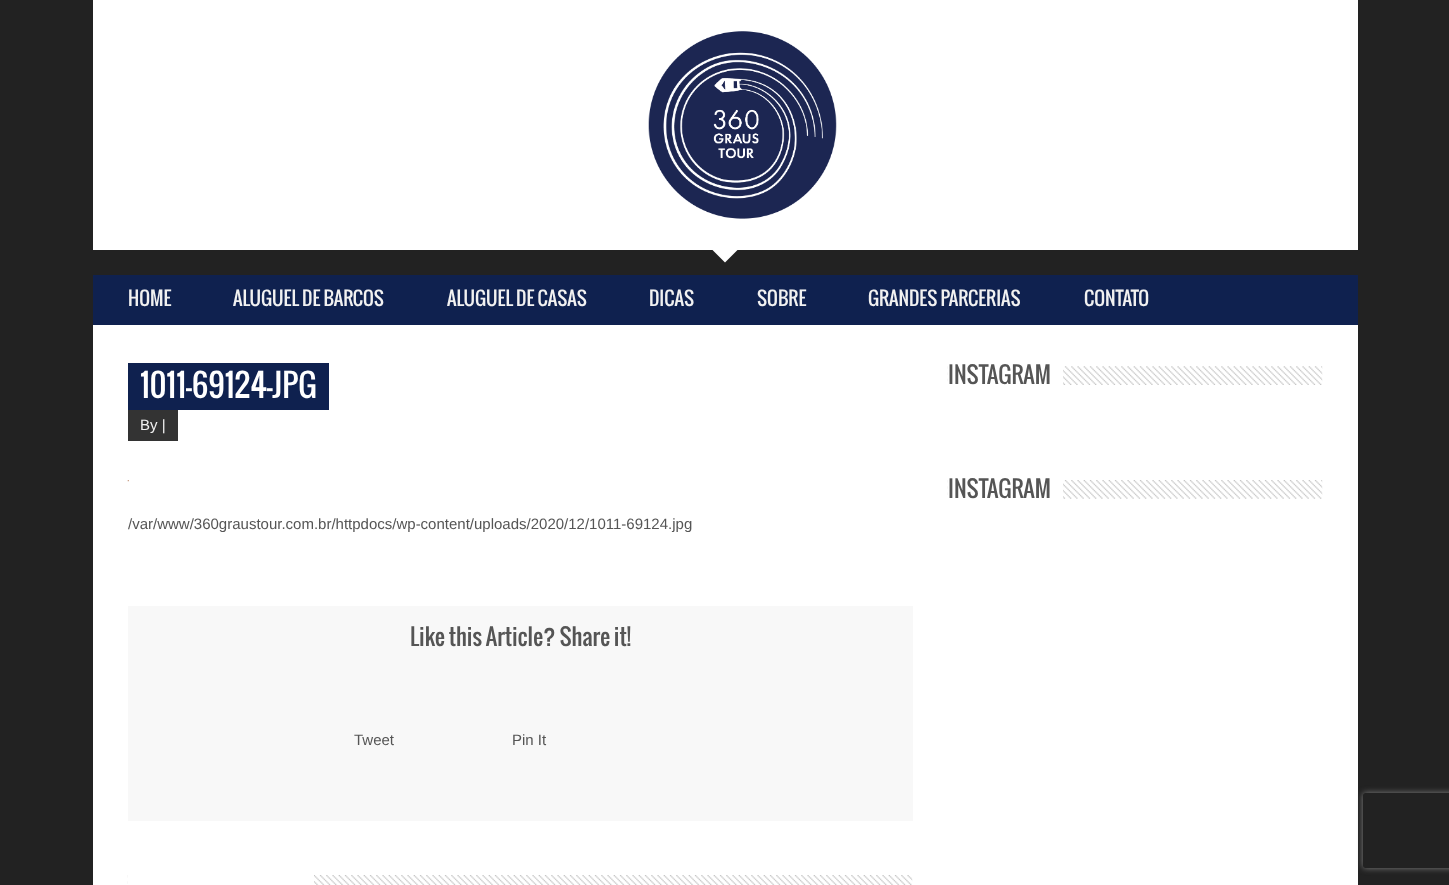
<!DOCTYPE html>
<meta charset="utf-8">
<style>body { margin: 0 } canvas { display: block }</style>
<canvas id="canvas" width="1449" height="885"></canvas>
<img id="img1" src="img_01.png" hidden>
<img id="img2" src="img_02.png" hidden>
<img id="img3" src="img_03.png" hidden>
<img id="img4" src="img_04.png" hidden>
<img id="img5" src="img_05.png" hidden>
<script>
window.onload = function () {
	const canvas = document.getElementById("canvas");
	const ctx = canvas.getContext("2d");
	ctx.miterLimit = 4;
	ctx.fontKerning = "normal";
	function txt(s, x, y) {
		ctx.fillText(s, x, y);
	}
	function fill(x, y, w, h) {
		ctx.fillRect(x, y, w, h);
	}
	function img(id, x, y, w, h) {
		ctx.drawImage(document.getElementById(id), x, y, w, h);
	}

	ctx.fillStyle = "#222222";
	fill(0, 0, 1449, 885);
	ctx.fillStyle = "#FFFFFF";
	fill(93, 0, 1265, 250);
	img("img1", 648, 31, 189, 188);
	ctx.beginPath();
	ctx.moveTo(712.5, 250);
	ctx.lineTo(737.5, 250);
	ctx.lineTo(725, 262.5);
	ctx.closePath();
	ctx.fill();
	ctx.fillStyle = "#0F214F";
	fill(93, 275, 1265, 50);
	ctx.fillStyle = "#FFFFFF";
	fill(93, 325, 1265, 560);
	ctx.fillStyle = "#0F214F";
	fill(128, 363, 201, 47);
	ctx.fillStyle = "#333333";
	fill(128, 410, 50, 31);
	img("img2", 127, 480, 2, 2);
	ctx.fillStyle = "#F8F8F8";
	fill(128, 606, 785, 215);
	img("img3", 127, 875, 786, 10);
	ctx.fillStyle = "#FFFFFF";
	fill(128, 875, 186, 10);
	img("img4", 947, 366, 376, 19);
	fill(948, 366, 115, 19);
	img("img5", 947, 480, 376, 19);
	fill(948, 480, 115, 19);
	ctx.save();
	ctx.beginPath();
	ctx.moveTo(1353, 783);
	ctx.lineTo(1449, 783);
	ctx.lineTo(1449, 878);
	ctx.lineTo(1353, 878);
	ctx.closePath();
	ctx.moveTo(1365.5, 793);
	ctx.lineTo(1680.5, 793);
	ctx.bezierCurveTo(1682, 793, 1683, 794, 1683, 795.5);
	ctx.lineTo(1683, 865.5);
	ctx.bezierCurveTo(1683, 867, 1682, 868, 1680.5, 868);
	ctx.lineTo(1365.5, 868);
	ctx.bezierCurveTo(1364, 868, 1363, 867, 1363, 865.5);
	ctx.lineTo(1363, 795.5);
	ctx.bezierCurveTo(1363, 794, 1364, 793, 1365.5, 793);
	ctx.closePath();
	ctx.clip("evenodd");
	ctx.fillStyle = "#808080";
	ctx.filter = "blur(3px)";
	ctx.beginPath();
	ctx.roundRect(1363, 793, 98, 75, 2.5);
	ctx.fill();
	ctx.filter = "none";
	ctx.restore();
	ctx.font = "18.75px Oswald";
	ctx.fillStyle = "#F1F1F1";
	txt("HOME", 128, 306);
	txt("ALUGUEL DE BARCOS", 233, 306);
	txt("ALUGUEL DE CASAS", 447, 306);
	txt("DICAS", 649, 306);
	txt("SOBRE", 757, 306);
	txt("GRANDES PARCERIAS", 868, 306);
	txt("CONTATO", 1084, 306);
	ctx.font = "31.25px Oswald";
	ctx.fillStyle = "#FFFFFF";
	txt("1011-69124-JPG", 140, 398);
	ctx.font = "15px Liberation Sans";
	ctx.fillStyle = "#F1F1F1";
	txt("By |", 140, 430);
	ctx.save();
	ctx.beginPath();
	ctx.rect(128, 460, 785, 115);
	ctx.clip();
	ctx.fillStyle = "#555555";
	txt("/var/www/360graustour.com.br/httpdocs/wp-content/uploads/2020/12/1011-69124.jpg", 128, 529);
	ctx.restore();
	ctx.font = "22.5px Oswald";
	ctx.fillStyle = "#555555";
	txt("Like this Article? Share it!", 410, 646);
	ctx.font = "15px Liberation Sans";
	txt("Tweet", 354, 745);
	txt("Pin It", 512, 745);
	ctx.font = "22.5px Oswald";
	txt("INSTAGRAM", 948, 384);
	txt("INSTAGRAM", 948, 498);
};
</script>
